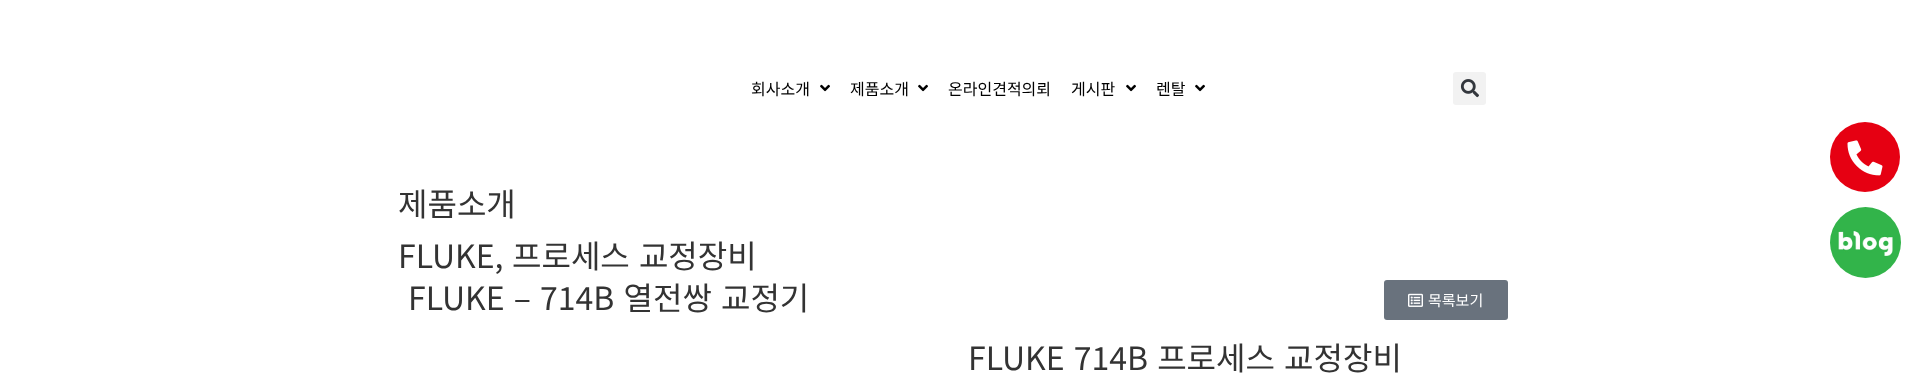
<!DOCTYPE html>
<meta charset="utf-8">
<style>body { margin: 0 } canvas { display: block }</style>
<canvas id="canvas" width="1915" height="388"></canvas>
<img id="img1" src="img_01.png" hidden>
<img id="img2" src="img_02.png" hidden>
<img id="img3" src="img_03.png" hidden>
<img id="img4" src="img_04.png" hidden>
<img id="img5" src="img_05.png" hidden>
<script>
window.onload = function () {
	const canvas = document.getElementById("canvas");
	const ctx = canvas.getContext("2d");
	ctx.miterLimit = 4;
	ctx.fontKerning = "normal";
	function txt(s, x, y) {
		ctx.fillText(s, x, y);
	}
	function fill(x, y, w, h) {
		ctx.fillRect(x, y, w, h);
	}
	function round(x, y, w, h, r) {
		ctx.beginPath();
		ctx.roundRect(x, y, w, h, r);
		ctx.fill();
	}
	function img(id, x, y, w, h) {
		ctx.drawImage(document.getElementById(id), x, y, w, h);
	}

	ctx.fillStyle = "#FFFFFF";
	fill(0, 0, 1915, 388);
	img("img1", 820, 84, 10, 8);
	img("img1", 918, 84, 10, 8);
	img("img1", 1126, 84, 10, 8);
	img("img1", 1195, 84, 10, 8);
	ctx.fillStyle = "#F2F2F2";
	round(1453, 72, 33, 33, 3);
	img("img2", 1460, 79, 19, 19);
	ctx.fillStyle = "#69727D";
	round(1384, 280, 124, 40, 3);
	img("img3", 1408, 293, 15, 14);
	ctx.fillStyle = "#E60012";
	ctx.beginPath();
	ctx.arc(1865, 157, 35, 0, Math.PI * 2);
	ctx.fill();
	img("img4", 1847, 140, 36, 36);
	img("img5", 1830, 207, 71, 71);
	ctx.font = "100 16px Noto Sans KR";
	ctx.fillStyle = "#000000";
	txt("회사소개", 751, 95);
	txt("제품소개", 850, 95);
	txt("온라인견적의뢰", 948, 95);
	txt("게시판", 1071, 95);
	txt("렌탈", 1156, 95);
	ctx.font = "100 32px Noto Sans KR";
	ctx.fillStyle = "#333333";
	txt("제품소개", 398, 216);
	txt("FLUKE,", 398, 268);
	ctx.wordSpacing = "2px";
	txt("프로세스 교정장비", 512, 268);
	txt("FLUKE – 714B 열전쌍 교정기", 408, 310);
	ctx.wordSpacing = "0px";
	ctx.font = "100 15px Noto Sans KR";
	ctx.fillStyle = "#FFFFFF";
	txt("목록보기", 1428, 306);
	ctx.wordSpacing = "2px";
	ctx.font = "100 32px Noto Sans KR";
	ctx.fillStyle = "#333333";
	txt("FLUKE 714B 프로세스 교정장비", 968, 370);
};
</script>
